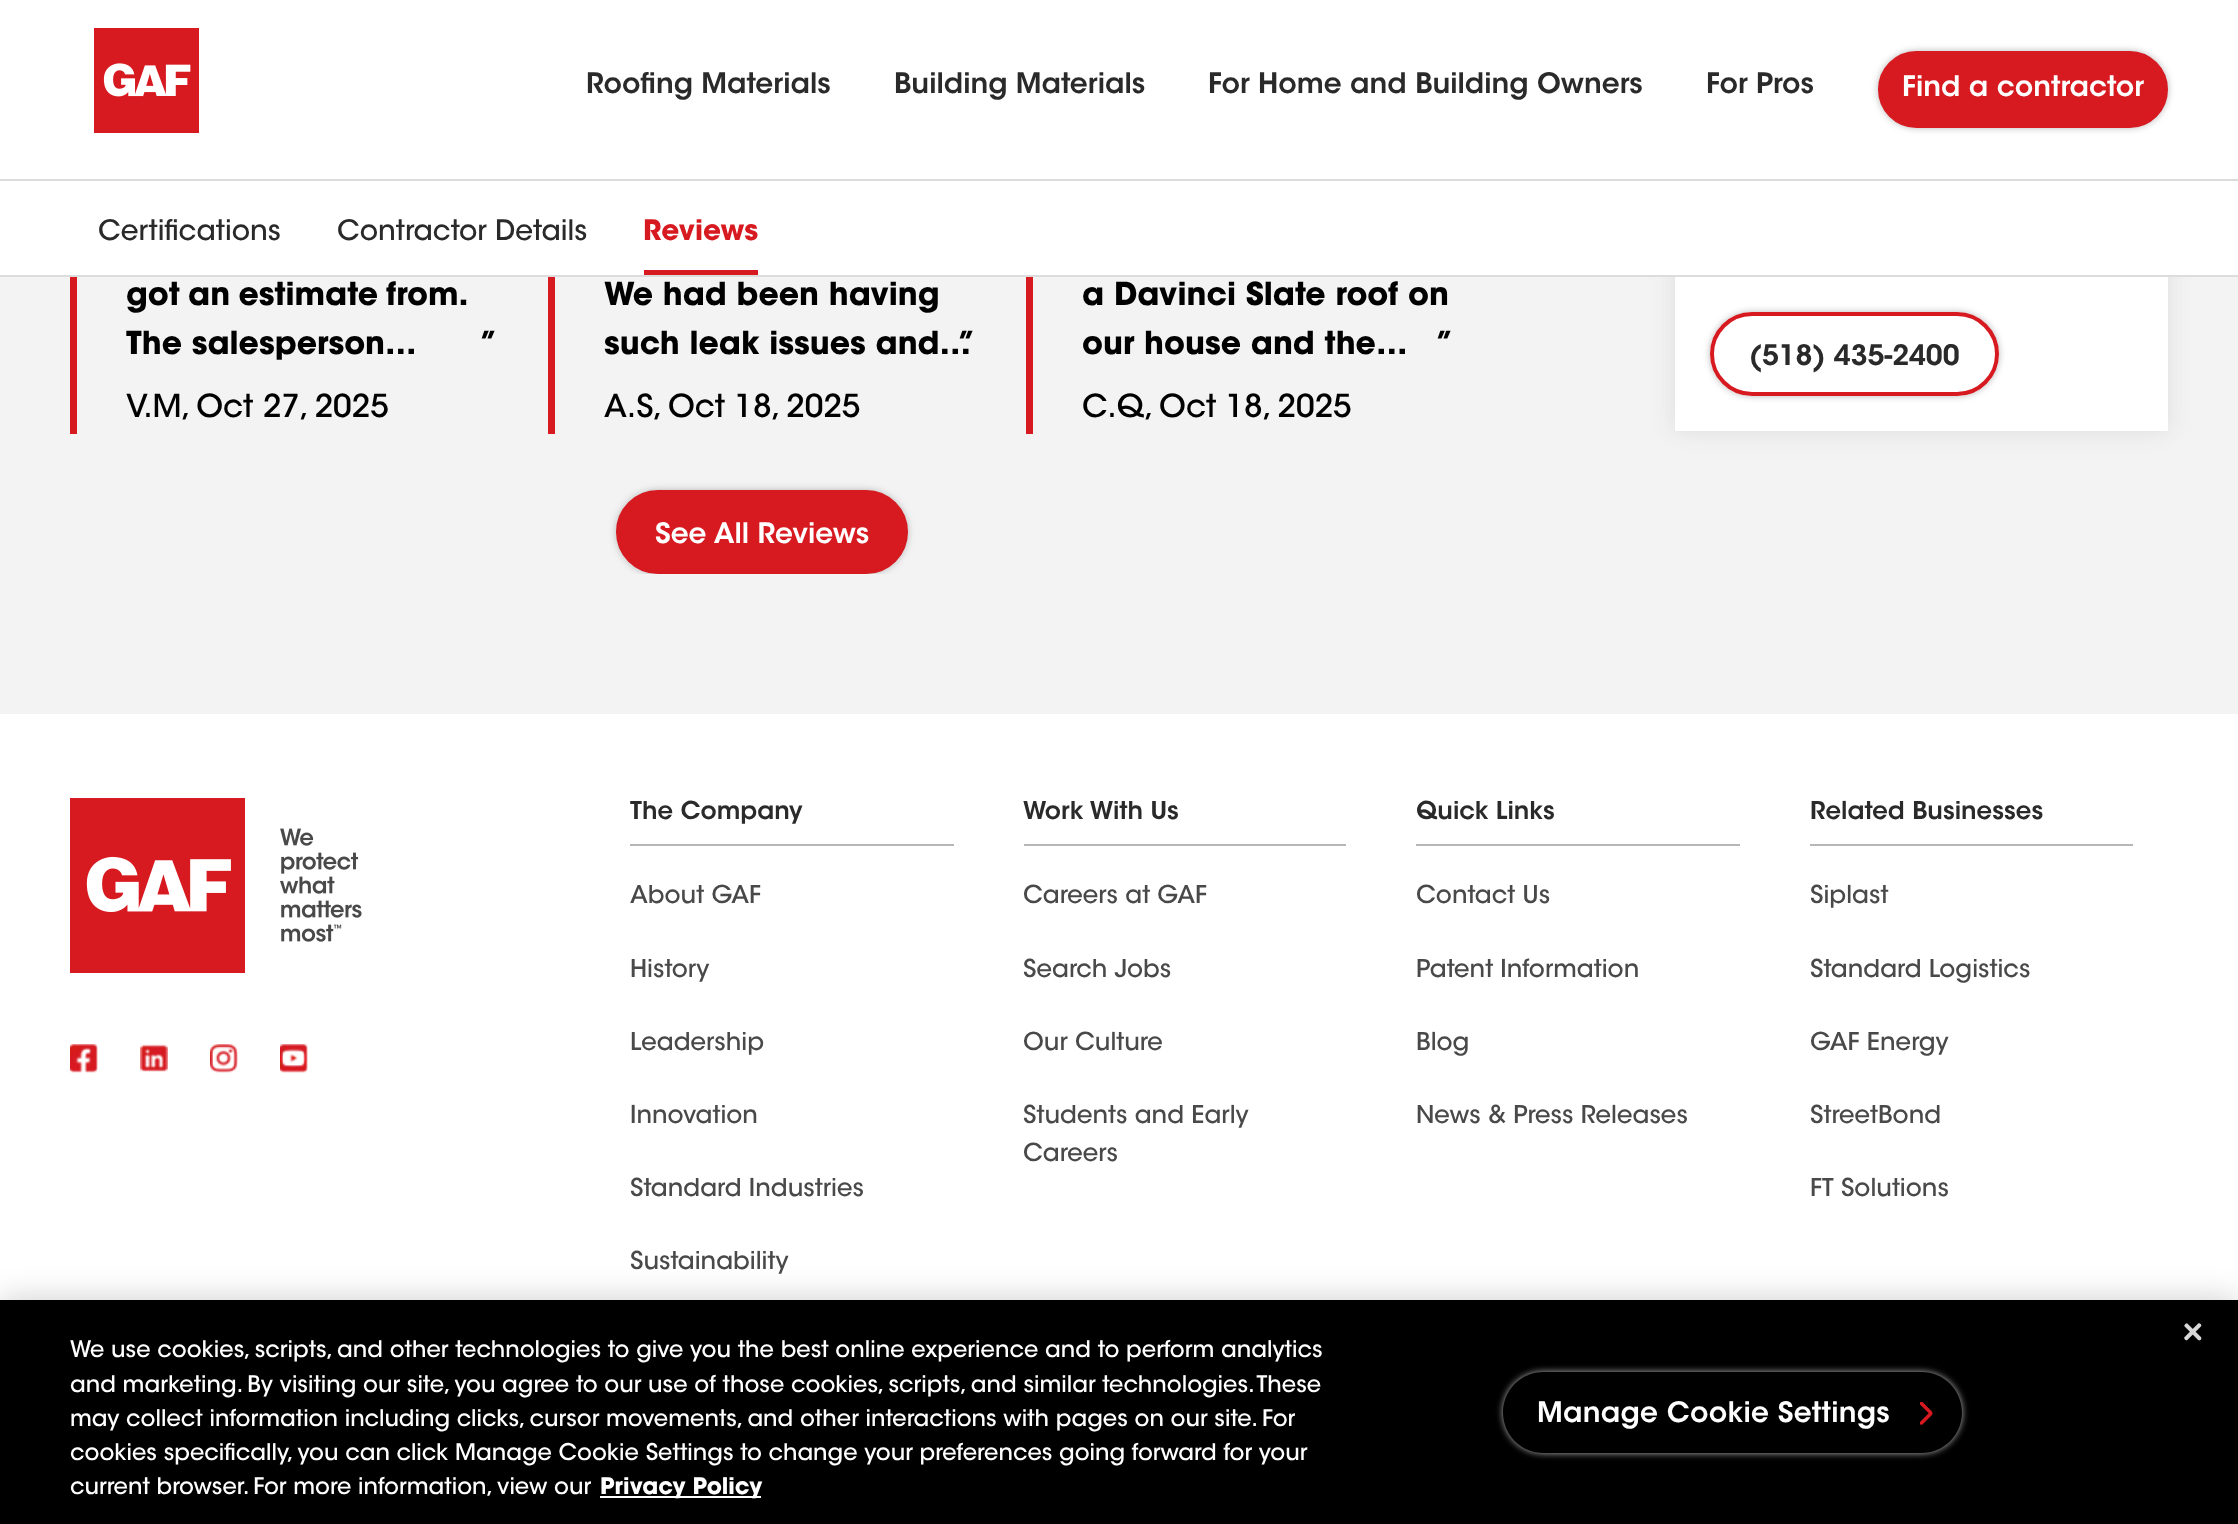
<!DOCTYPE html>
<meta charset="utf-8">
<style>body { margin: 0 } canvas { display: block }</style>
<canvas id="canvas" width="2238" height="1524"></canvas>
<img id="img1" src="img_01.png" hidden>
<img id="img2" src="img_02.png" hidden>
<img id="img3" src="img_03.png" hidden>
<img id="img4" src="img_04.png" hidden>
<img id="img5" src="img_05.png" hidden>
<img id="img6" src="img_06.png" hidden>
<img id="img7" src="img_07.png" hidden>
<script>
window.onload = function () {
	const canvas = document.getElementById("canvas");
	const ctx = canvas.getContext("2d");
	ctx.miterLimit = 4;
	ctx.fontKerning = "normal";
	function txt(s, x, y) {
		ctx.fillText(s, x, y);
	}
	function fill(x, y, w, h) {
		ctx.fillRect(x, y, w, h);
	}
	function img(id, x, y, w, h) {
		ctx.drawImage(document.getElementById(id), x, y, w, h);
	}

	ctx.fillStyle = "#F3F3F3";
	fill(0, 0, 2238, 1524);
	ctx.fillStyle = "#DCDCDC";
	ctx.filter = "blur(10.5px)";
	ctx.beginPath();
	ctx.rect(1675, 112, 493, 319);
	ctx.fill();
	ctx.filter = "none";
	ctx.fillStyle = "#FFFFFF";
	fill(0, 0, 2238, 179);
	ctx.fillStyle = "#DCDCDC";
	fill(0, 179, 2238, 2);
	img("img1", 94, 28, 105, 105);
	ctx.fillStyle = "#B7B7B7";
	ctx.filter = "blur(3.5px)";
	ctx.beginPath();
	ctx.roundRect(1878, 51, 290, 77, 38.5);
	ctx.fill();
	ctx.filter = "none";
	ctx.fillStyle = "#D71920";
	ctx.beginPath();
	ctx.roundRect(1880, 53, 286, 73, 36.5);
	ctx.fill();
	ctx.strokeStyle = "#D71920";
	ctx.lineWidth = 4;
	ctx.stroke();
	ctx.fillStyle = "#FFFFFF";
	fill(0, 181, 2238, 94);
	ctx.fillStyle = "#DCDCDC";
	fill(0, 275, 2238, 2);
	ctx.fillStyle = "#D71920";
	fill(644, 270, 114, 5);
	fill(70, 277, 7, 157);
	fill(548, 277, 7, 157);
	fill(1026, 277, 7, 157);
	ctx.save();
	ctx.beginPath();
	ctx.rect(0, 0, 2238, 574);
	ctx.clip();
	ctx.fillStyle = "#B7B7B7";
	ctx.filter = "blur(3.5px)";
	ctx.beginPath();
	ctx.roundRect(616, 490, 292, 84, 42);
	ctx.fill();
	ctx.filter = "none";
	ctx.restore();
	ctx.beginPath();
	ctx.roundRect(618, 492, 288, 80, 40);
	ctx.fill();
	ctx.stroke();
	ctx.fillStyle = "#FFFFFF";
	fill(1675, 277, 493, 154);
	ctx.save();
	ctx.beginPath();
	ctx.moveTo(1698, 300);
	ctx.lineTo(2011, 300);
	ctx.lineTo(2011, 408);
	ctx.lineTo(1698, 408);
	ctx.closePath();
	ctx.moveTo(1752, 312);
	ctx.lineTo(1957, 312);
	ctx.bezierCurveTo(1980, 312, 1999, 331, 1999, 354);
	ctx.bezierCurveTo(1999, 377, 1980, 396, 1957, 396);
	ctx.lineTo(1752, 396);
	ctx.bezierCurveTo(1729, 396, 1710, 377, 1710, 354);
	ctx.bezierCurveTo(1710, 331, 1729, 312, 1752, 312);
	ctx.closePath();
	ctx.clip("evenodd");
	ctx.fillStyle = "#B7B7B7";
	ctx.filter = "blur(3.5px)";
	ctx.beginPath();
	ctx.roundRect(1710, 312, 289, 84, 42);
	ctx.fill();
	ctx.filter = "none";
	ctx.restore();
	ctx.beginPath();
	ctx.roundRect(1712, 314, 285, 80, 40);
	ctx.stroke();
	fill(0, 714, 2238, 586);
	img("img2", 70, 798, 292, 175);
	img("img3", 70, 1044, 28, 29);
	img("img4", 140, 1044, 28, 28);
	img("img5", 210, 1044, 28, 29);
	img("img6", 280, 1044, 28, 29);
	ctx.fillStyle = "#B7B7B7";
	fill(630, 844, 324, 2);
	fill(1024, 844, 322, 2);
	fill(1416, 844, 324, 2);
	fill(1810, 844, 323, 2);
	ctx.fillStyle = "rgba(0, 0, 0, 0.2)";
	ctx.filter = "blur(16px)";
	ctx.beginPath();
	ctx.rect(0, 1300, 2238, 224);
	ctx.fill();
	ctx.filter = "none";
	ctx.fillStyle = "#000000";
	fill(0, 1300, 2238, 224);
	img("img7", 2184, 1323, 18, 18);
	ctx.fillStyle = "#FFFFFF";
	fill(600, 1496, 161, 2);
	ctx.save();
	ctx.beginPath();
	ctx.moveTo(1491, 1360);
	ctx.lineTo(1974, 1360);
	ctx.lineTo(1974, 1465);
	ctx.lineTo(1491, 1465);
	ctx.closePath();
	ctx.moveTo(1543.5, 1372);
	ctx.lineTo(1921.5, 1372);
	ctx.bezierCurveTo(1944, 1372, 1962, 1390, 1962, 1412.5);
	ctx.bezierCurveTo(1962, 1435, 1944, 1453, 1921.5, 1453);
	ctx.lineTo(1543.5, 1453);
	ctx.bezierCurveTo(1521, 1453, 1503, 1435, 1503, 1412.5);
	ctx.bezierCurveTo(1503, 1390, 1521, 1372, 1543.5, 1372);
	ctx.closePath();
	ctx.clip("evenodd");
	ctx.fillStyle = "#B7B7B7";
	ctx.filter = "blur(3.5px)";
	ctx.beginPath();
	ctx.roundRect(1503, 1372, 459, 81, 40.5);
	ctx.fill();
	ctx.filter = "none";
	ctx.restore();
	ctx.save();
	ctx.beginPath();
	ctx.rect(1920, 1402, 14, 24);
	ctx.clip();
	ctx.beginPath();
	ctx.moveTo(1921.5, 1423);
	ctx.lineTo(1930, 1414.5);
	ctx.bezierCurveTo(1931, 1414, 1931, 1413, 1930, 1412);
	ctx.lineTo(1921.5, 1403.5);
	ctx.lineWidth = 3.5;
	ctx.lineCap = "round";
	ctx.stroke();
	ctx.restore();
	ctx.font = "600 28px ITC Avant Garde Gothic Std";
	ctx.fillStyle = "#2A2A2A";
	txt("Roofing Materials", 586, 93);
	txt("Building Materials", 894, 93);
	txt("For Home and Building Owners", 1208, 93);
	txt("For Pros", 1706, 93);
	ctx.fillStyle = "#FFFFFF";
	txt("Find a contractor", 1902, 96);
	ctx.font = "500 28px ITC Avant Garde Gothic Std";
	ctx.fillStyle = "#2A2A2A";
	txt("Certifications", 98, 240);
	txt("Contractor Details", 337, 240);
	ctx.font = "bold 28px ITC Avant Garde Gothic Std";
	ctx.fillStyle = "#D71920";
	txt("Reviews", 643, 240);
	ctx.wordSpacing = "-1.5px";
	ctx.font = "bold 31.5px ITC Avant Garde Gothic Std";
	ctx.fillStyle = "#000000";
	txt("got an estimate from.", 126, 305);
	ctx.wordSpacing = "0px";
	txt("The salesperson…", 126, 354);
	txt("”", 481, 354);
	ctx.font = "500 31.5px ITC Avant Garde Gothic Std";
	txt("V.M, Oct 27, 2025", 126, 417);
	ctx.font = "bold 31.5px ITC Avant Garde Gothic Std";
	txt("We had been having", 604, 305);
	txt("such leak issues and…", 604, 354);
	txt("”", 959, 354);
	ctx.font = "500 31.5px ITC Avant Garde Gothic Std";
	txt("A.S, Oct 18, 2025", 604, 417);
	ctx.font = "bold 31.5px ITC Avant Garde Gothic Std";
	txt("a Davinci Slate roof on", 1082, 305);
	txt("our house and the…", 1082, 354);
	txt("”", 1437, 354);
	ctx.font = "500 31.5px ITC Avant Garde Gothic Std";
	txt("C.Q, Oct 18, 2025", 1082, 417);
	ctx.font = "600 28px ITC Avant Garde Gothic Std";
	ctx.fillStyle = "#FFFFFF";
	txt("See All Reviews", 655, 543);
	ctx.fillStyle = "#2A2A2A";
	txt("(518) 435-2400", 1749, 365);
	ctx.font = "600 24.5px ITC Avant Garde Gothic Std";
	txt("The Company", 630, 819);
	ctx.font = "500 24.5px ITC Avant Garde Gothic Std";
	ctx.fillStyle = "#494949";
	txt("About GAF", 630, 903);
	txt("History", 630, 977);
	txt("Leadership", 630, 1050);
	txt("Innovation", 630, 1123);
	txt("Standard Industries", 630, 1196);
	txt("Sustainability", 630, 1269);
	ctx.font = "600 24.5px ITC Avant Garde Gothic Std";
	ctx.fillStyle = "#2A2A2A";
	txt("Work With Us", 1023, 819);
	ctx.font = "500 24.5px ITC Avant Garde Gothic Std";
	ctx.fillStyle = "#494949";
	txt("Careers at GAF", 1023, 903);
	txt("Search Jobs", 1023, 977);
	txt("Our Culture", 1023, 1050);
	txt("Students and Early", 1023, 1123);
	txt("Careers", 1023, 1161);
	ctx.font = "600 24.5px ITC Avant Garde Gothic Std";
	ctx.fillStyle = "#2A2A2A";
	txt("Quick Links", 1416, 819);
	ctx.font = "500 24.5px ITC Avant Garde Gothic Std";
	ctx.fillStyle = "#494949";
	txt("Contact Us", 1416, 903);
	txt("Patent Information", 1416, 977);
	txt("Blog", 1416, 1050);
	txt("News & Press Releases", 1416, 1123);
	ctx.font = "600 24.5px ITC Avant Garde Gothic Std";
	ctx.fillStyle = "#2A2A2A";
	txt("Related Businesses", 1810, 819);
	ctx.font = "500 24.5px ITC Avant Garde Gothic Std";
	ctx.fillStyle = "#494949";
	txt("Siplast", 1810, 903);
	txt("Standard Logistics", 1810, 977);
	txt("GAF Energy", 1810, 1050);
	txt("StreetBond", 1810, 1123);
	txt("FT Solutions", 1810, 1196);
	ctx.font = "500 22.75px ITC Avant Garde Gothic Std";
	ctx.fillStyle = "#FFFFFF";
	txt("We use cookies, scripts, and other technologies to give you the best online experience and to perform analytics", 70, 1357);
	txt("and marketing. By visiting our site, you agree to our use of those cookies, scripts, and similar technologies. These", 70, 1392);
	txt("may collect information including clicks, cursor movements, and other interactions with pages on our site. For", 70, 1426);
	txt("cookies specifically, you can click Manage Cookie Settings to change your preferences going forward for your", 70, 1460);
	txt("current browser. For more information, view our", 70, 1494);
	ctx.font = "bold 22.75px ITC Avant Garde Gothic Std";
	txt("Privacy Policy", 600, 1494);
	ctx.letterSpacing = "0.25px";
	ctx.font = "600 28px ITC Avant Garde Gothic Std";
	txt("Manage Cookie Settings", 1537, 1422);
};
</script>
